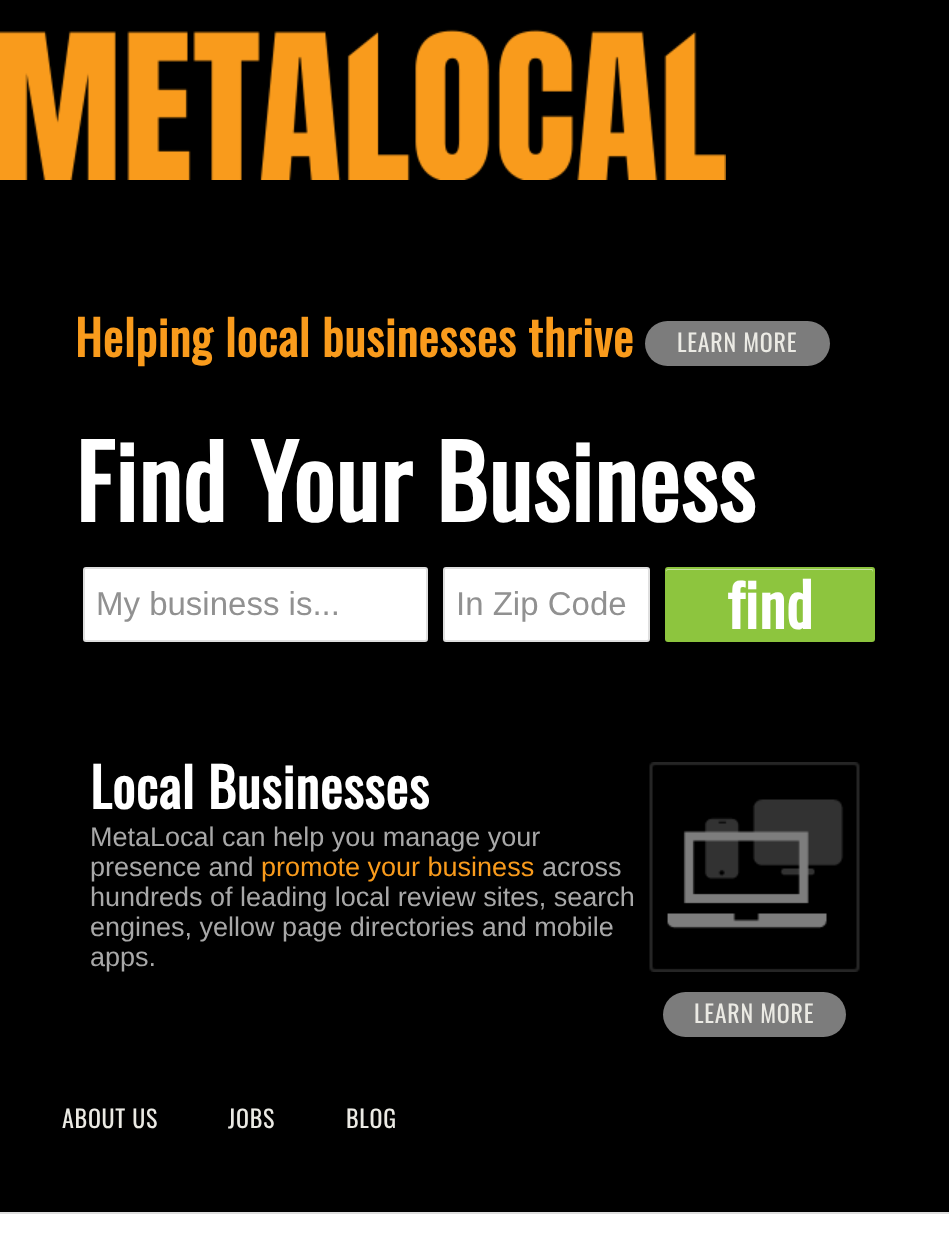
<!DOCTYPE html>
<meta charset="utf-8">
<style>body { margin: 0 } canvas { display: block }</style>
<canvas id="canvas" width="949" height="1249"></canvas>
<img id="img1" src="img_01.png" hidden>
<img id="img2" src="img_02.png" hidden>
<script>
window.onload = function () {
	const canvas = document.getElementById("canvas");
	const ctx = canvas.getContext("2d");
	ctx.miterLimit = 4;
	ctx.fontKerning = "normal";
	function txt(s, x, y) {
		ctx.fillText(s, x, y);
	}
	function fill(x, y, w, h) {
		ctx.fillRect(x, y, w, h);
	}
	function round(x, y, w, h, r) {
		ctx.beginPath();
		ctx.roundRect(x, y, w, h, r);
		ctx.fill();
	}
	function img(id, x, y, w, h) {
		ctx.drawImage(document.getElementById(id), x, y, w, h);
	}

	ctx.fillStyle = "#FFFFFF";
	fill(0, 0, 949, 1249);
	ctx.fillStyle = "#F99B1C";
	fill(0, 29, 726, 151);
	img("img1", 0, 0, 726, 180);
	ctx.fillStyle = "#000000";
	fill(726, 0, 223, 180);
	fill(0, 180, 949, 1032);
	ctx.fillStyle = "#7C7C7C";
	round(645, 321, 185, 45, 22.5);
	ctx.fillStyle = "#FFFFFF";
	ctx.beginPath();
	ctx.roundRect(84, 568, 343, 73, 2);
	ctx.fill();
	ctx.strokeStyle = "#DFDFDF";
	ctx.lineWidth = 2;
	ctx.stroke();
	ctx.beginPath();
	ctx.roundRect(444, 568, 205, 73, 2);
	ctx.fill();
	ctx.stroke();
	ctx.fillStyle = "#8DC53E";
	round(665, 567, 210, 75, 3);
	ctx.fillStyle = "#C6E29F";
	ctx.beginPath();
	ctx.moveTo(668, 570);
	ctx.lineTo(872, 570);
	ctx.lineTo(873, 572);
	ctx.bezierCurveTo(873, 571, 873, 569, 872, 569);
	ctx.lineTo(668, 569);
	ctx.bezierCurveTo(666, 569, 666, 571, 666, 572);
	ctx.bezierCurveTo(666, 571, 667, 570, 668, 570);
	ctx.closePath();
	ctx.fill();
	img("img2", 649, 762, 211, 210);
	ctx.fillStyle = "#7C7C7C";
	round(663, 992, 183, 45, 22.5);
	ctx.fillStyle = "#DDDDDD";
	fill(0, 1212, 949, 2);
	ctx.letterSpacing = "0.75px";
	ctx.font = "bold 48px Oswald";
	ctx.fillStyle = "#F99B1C";
	txt("Helping local businesses thrive", 75, 357);
	ctx.font = "24px Oswald";
	ctx.fillStyle = "#EBEAE4";
	txt("LEARN MORE", 677, 352);
	ctx.font = "bold 99px Oswald";
	ctx.fillStyle = "#FFFFFF";
	txt("Find Your Business", 75, 522);
	ctx.letterSpacing = "0px";
	ctx.font = "33px Liberation Sans";
	ctx.fillStyle = "#919191";
	txt("My business is...", 96, 615);
	txt("In Zip Code", 456, 615);
	ctx.letterSpacing = "0.75px";
	ctx.font = "bold 60px Oswald";
	ctx.fillStyle = "#FFFFFF";
	txt("find", 727, 629);
	ctx.font = "bold 54px Oswald";
	txt("Local Businesses", 90, 809);
	ctx.letterSpacing = "0px";
	ctx.font = "27px Liberation Sans";
	ctx.fillStyle = "#A8A8A8";
	txt("MetaLocal can help you manage your", 90, 846);
	txt("presence and", 90, 876);
	ctx.fillStyle = "#F99B1C";
	txt("promote your business", 261, 876);
	ctx.fillStyle = "#A8A8A8";
	txt("across", 542, 876);
	txt("hundreds of leading local review sites, search", 90, 906);
	txt("engines, yellow page directories and mobile", 90, 936);
	txt("apps.", 90, 966);
	ctx.letterSpacing = "0.75px";
	ctx.font = "24px Oswald";
	ctx.fillStyle = "#EBEAE4";
	txt("LEARN MORE", 694, 1023);
	txt("ABOUT US", 62, 1128);
	txt("JOBS", 228, 1128);
	txt("BLOG", 346, 1128);
};
</script>
